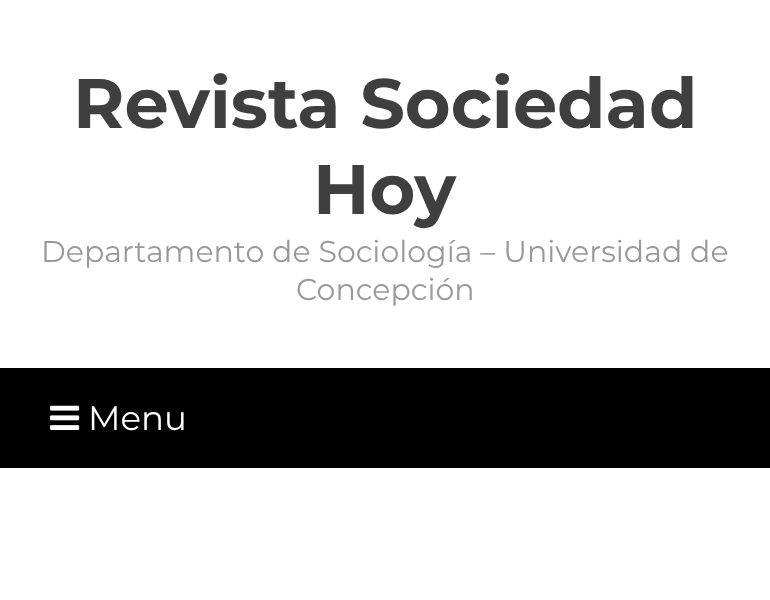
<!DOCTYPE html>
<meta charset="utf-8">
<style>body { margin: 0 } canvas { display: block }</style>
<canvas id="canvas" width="770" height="600"></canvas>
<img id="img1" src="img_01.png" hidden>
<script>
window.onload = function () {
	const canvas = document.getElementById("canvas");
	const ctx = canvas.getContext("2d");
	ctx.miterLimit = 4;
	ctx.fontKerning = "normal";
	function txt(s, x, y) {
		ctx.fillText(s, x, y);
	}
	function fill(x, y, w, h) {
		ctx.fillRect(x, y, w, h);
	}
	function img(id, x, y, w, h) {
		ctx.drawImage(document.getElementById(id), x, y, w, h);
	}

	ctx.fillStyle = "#FFFFFF";
	fill(0, 0, 770, 600);
	ctx.fillStyle = "#000000";
	fill(0, 368, 770, 100);
	img("img1", 50, 405, 30, 25);
	ctx.font = "bold 70px Montserrat";
	ctx.fillStyle = "#3F3F3F";
	txt("Revista Sociedad", 73, 128);
	txt("Hoy", 313, 214);
	ctx.font = "30px Montserrat";
	ctx.fillStyle = "#999999";
	txt("Departamento de Sociología – Universidad de", 41, 262);
	txt("Concepción", 296, 300);
	ctx.font = "34px Montserrat";
	ctx.fillStyle = "#FFFFFF";
	txt("Menu", 88, 430);
};
</script>
